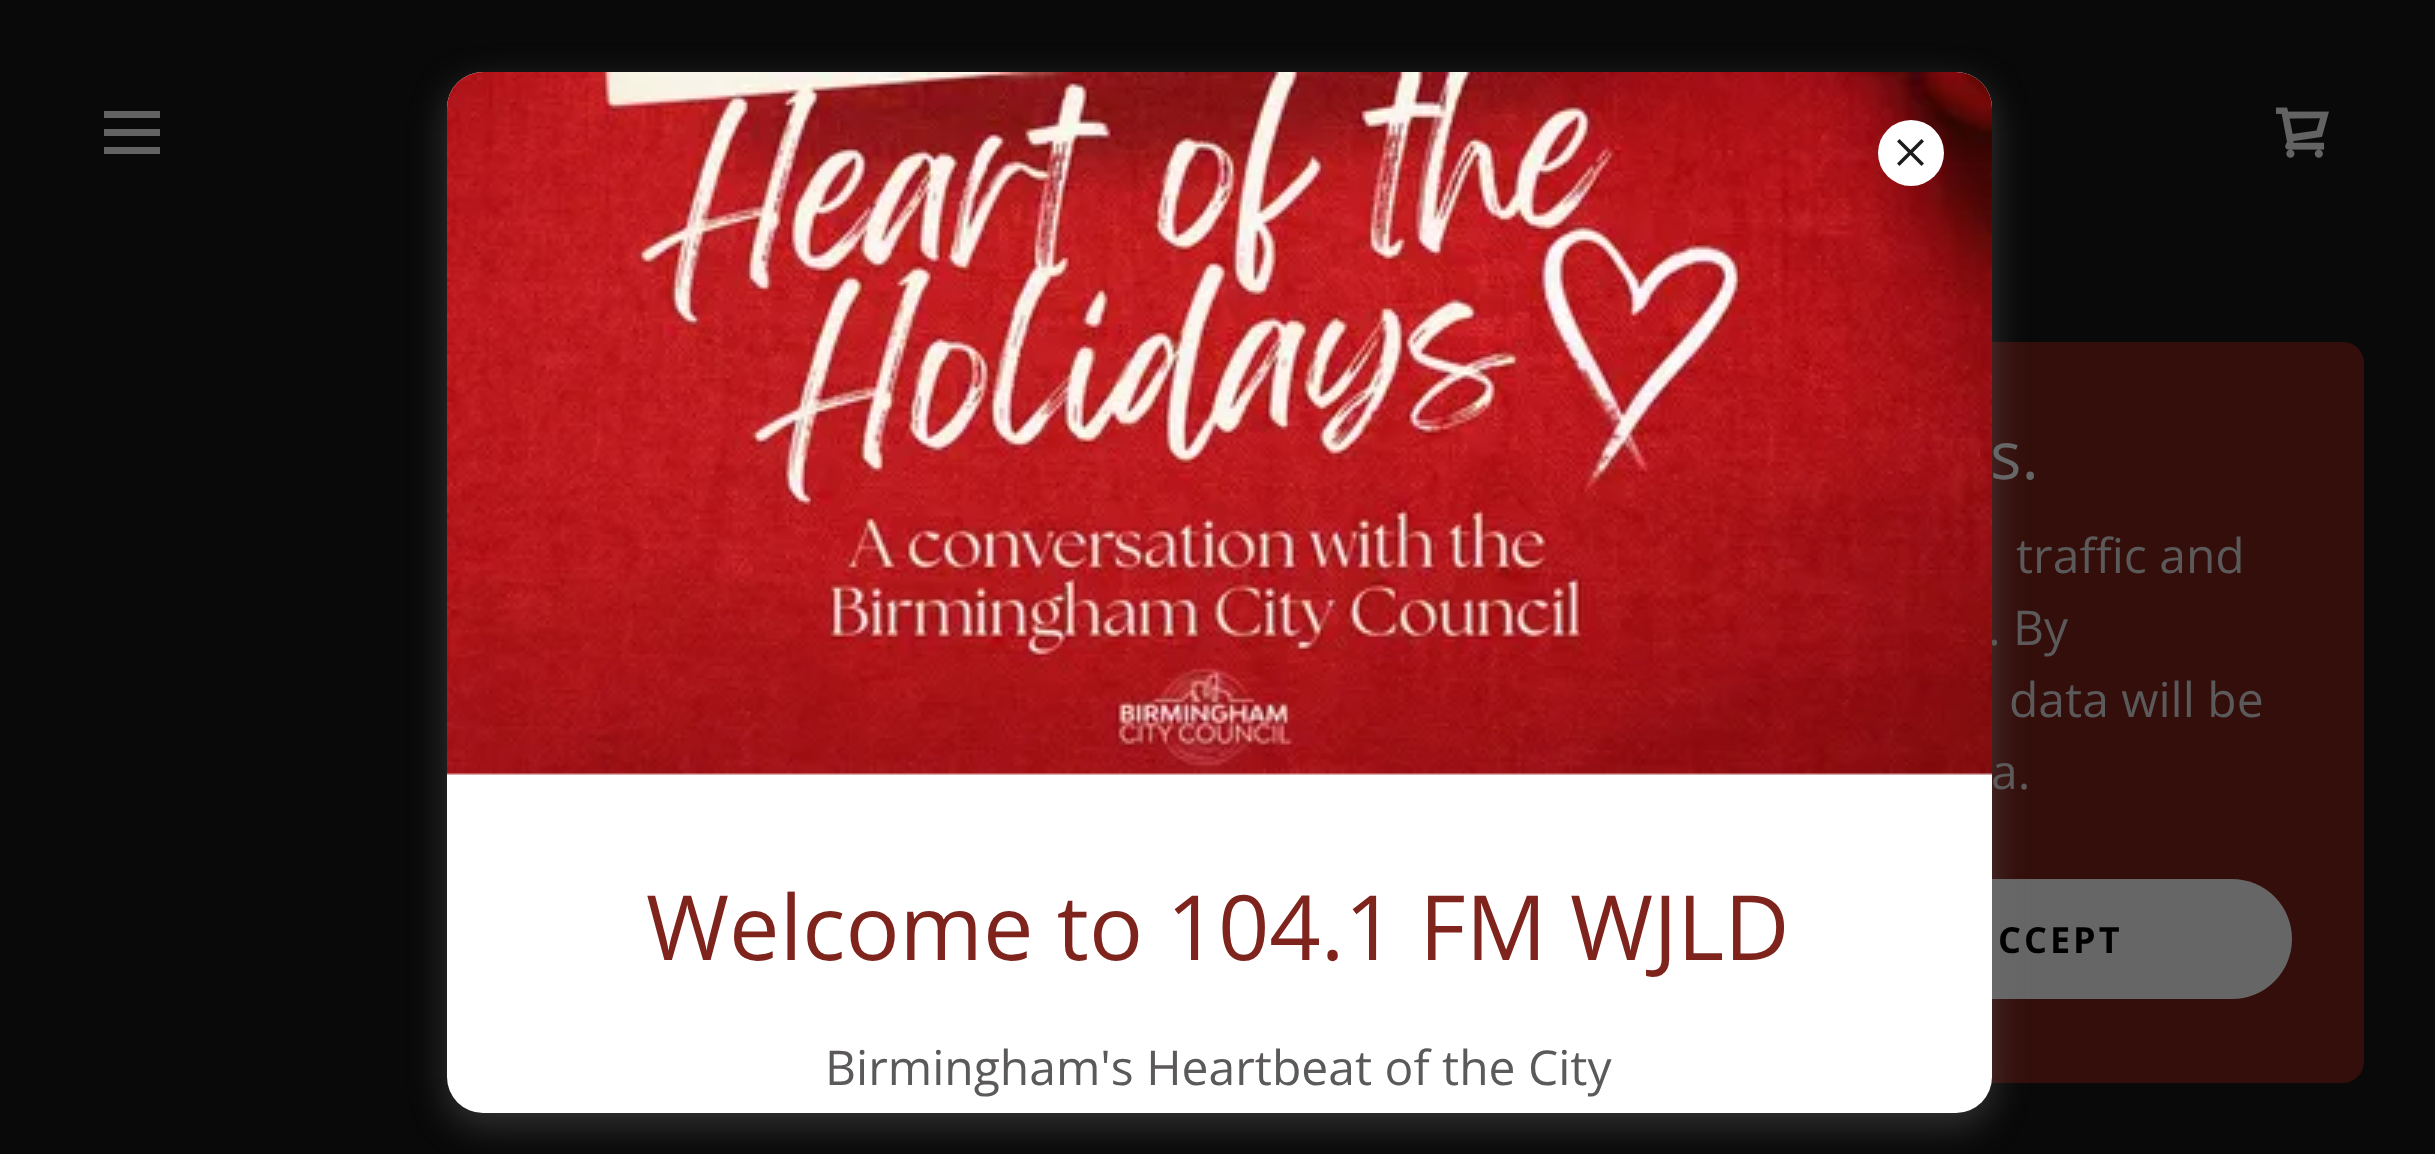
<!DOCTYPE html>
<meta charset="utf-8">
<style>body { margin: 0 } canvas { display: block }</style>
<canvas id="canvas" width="2435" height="1154"></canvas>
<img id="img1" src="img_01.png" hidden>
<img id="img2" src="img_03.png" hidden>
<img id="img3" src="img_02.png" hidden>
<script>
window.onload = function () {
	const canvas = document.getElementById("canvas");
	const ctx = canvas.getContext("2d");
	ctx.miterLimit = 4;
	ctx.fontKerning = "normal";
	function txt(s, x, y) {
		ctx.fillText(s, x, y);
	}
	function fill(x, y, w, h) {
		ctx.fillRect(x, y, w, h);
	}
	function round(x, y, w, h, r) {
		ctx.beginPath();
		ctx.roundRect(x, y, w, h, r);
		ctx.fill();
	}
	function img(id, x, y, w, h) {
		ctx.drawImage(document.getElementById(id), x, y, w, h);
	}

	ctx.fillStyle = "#090909";
	fill(0, 0, 2435, 1154);
	ctx.fillStyle = "#636363";
	fill(104, 111, 56, 7);
	fill(104, 129, 56, 7);
	fill(104, 147, 56, 7);
	img("img1", 2276, 107, 53, 51);
	ctx.fillStyle = "#330E0B";
	round(1164, 342, 1200, 741, 21);
	ctx.fillStyle = "#666666";
	round(1800, 879, 492, 120, 60);
	ctx.fillStyle = "rgba(117, 117, 117, 0.4)";
	ctx.filter = "blur(18px)";
	ctx.beginPath();
	ctx.roundRect(447, 84, 1545, 1041, 36);
	ctx.fill();
	ctx.filter = "none";
	ctx.font = "66px Open Sans";
	ctx.fillStyle = "#666666";
	txt("s.", 1990, 479);
	ctx.font = "48px Open Sans";
	ctx.fillStyle = "#5B5959";
	txt("traffic and", 2016, 573);
	txt(". By", 1988, 645);
	txt("data will be", 2009, 717);
	txt("a.", 1991, 789);
	ctx.letterSpacing = "3px";
	ctx.font = "bold 36px Open Sans";
	ctx.fillStyle = "#000000";
	txt("CCEPT", 1998, 953);
	ctx.fillStyle = "#FFFFFF";
	round(447, 72, 1545, 1041, 36);
	img("img2", 447, 72, 1545, 703);
	ctx.beginPath();
	ctx.arc(1911, 153, 33, 0, Math.PI * 2);
	ctx.fill();
	img("img3", 1897, 139, 27, 27);
	ctx.letterSpacing = "0px";
	ctx.font = "90px Open Sans";
	ctx.fillStyle = "#7F241C";
	txt("Welcome to 104.1 FM WJLD", 646, 960);
	ctx.font = "48px Open Sans";
	ctx.fillStyle = "#5B5959";
	txt("Birmingham's Heartbeat of the City", 825, 1085);
};
</script>
